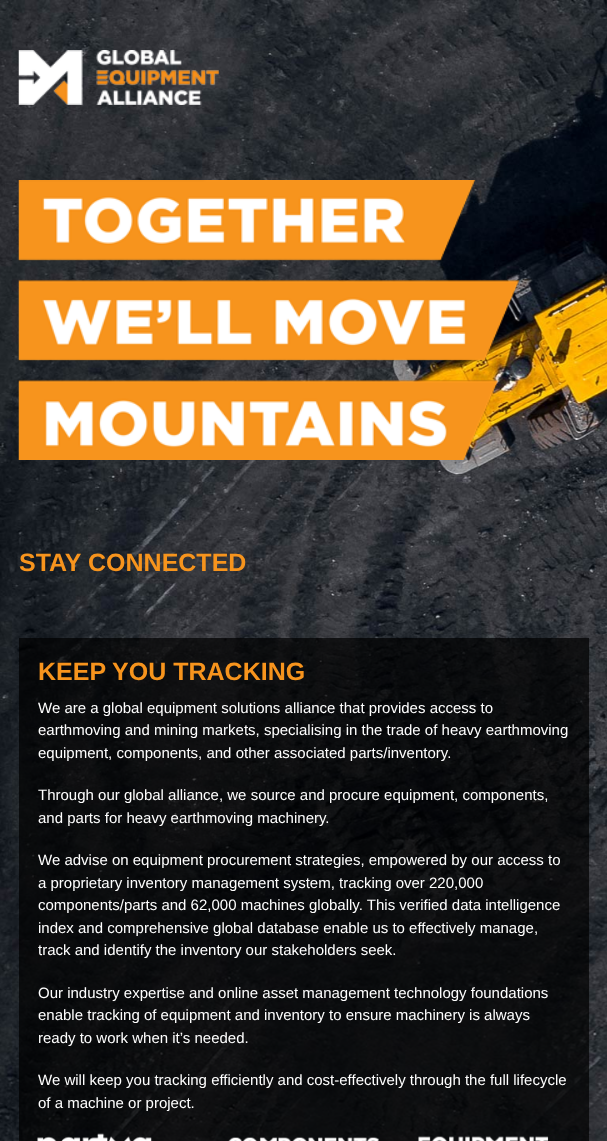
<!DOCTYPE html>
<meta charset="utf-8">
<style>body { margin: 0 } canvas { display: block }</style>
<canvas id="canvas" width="607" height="1141"></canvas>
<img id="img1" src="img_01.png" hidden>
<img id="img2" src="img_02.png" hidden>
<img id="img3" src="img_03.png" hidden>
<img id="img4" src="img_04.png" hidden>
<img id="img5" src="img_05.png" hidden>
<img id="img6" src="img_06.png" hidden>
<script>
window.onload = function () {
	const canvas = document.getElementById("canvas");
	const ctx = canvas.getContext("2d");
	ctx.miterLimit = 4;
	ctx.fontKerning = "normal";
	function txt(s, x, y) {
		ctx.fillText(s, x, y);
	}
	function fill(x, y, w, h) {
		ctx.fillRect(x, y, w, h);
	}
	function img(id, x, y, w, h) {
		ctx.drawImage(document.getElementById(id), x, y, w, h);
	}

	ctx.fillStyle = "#FFFFFF";
	fill(0, 0, 607, 1141);
	img("img1", 0, 0, 607, 1141);
	img("img2", 18, 50, 201, 55);
	img("img3", 18, 180, 501, 280);
	ctx.fillStyle = "rgba(0, 0, 0, 0.7)";
	fill(19, 638, 570, 503);
	img("img4", 37, 1133, 115, 8);
	img("img5", 228, 1137, 151, 4);
	img("img6", 418, 1136, 131, 5);
	ctx.font = "bold 25px Liberation Sans";
	ctx.fillStyle = "#F7941D";
	txt("STAY CONNECTED", 19, 571);
	txt("KEEP YOU TRACKING", 38, 680);
	ctx.font = "15px Liberation Sans";
	ctx.fillStyle = "#FFFFFF";
	txt("We are a global equipment solutions alliance that provides access to", 38, 713);
	txt("earthmoving and mining markets, specialising in the trade of heavy earthmoving", 38, 735);
	txt("equipment, components, and other associated parts/inventory.", 38, 758);
	txt("Through our global alliance, we source and procure equipment, components,", 38, 800);
	txt("and parts for heavy earthmoving machinery.", 38, 823);
	txt("We advise on equipment procurement strategies, empowered by our access to", 38, 865);
	txt("a proprietary inventory management system, tracking over 220,000", 38, 888);
	txt("components/parts and 62,000 machines globally. This verified data intelligence", 38, 910);
	txt("index and comprehensive global database enable us to effectively manage,", 38, 933);
	txt("track and identify the inventory our stakeholders seek.", 38, 955);
	txt("Our industry expertise and online asset management technology foundations", 38, 998);
	txt("enable tracking of equipment and inventory to ensure machinery is always", 38, 1020);
	txt("ready to work when it’s needed.", 38, 1043);
	txt("We will keep you tracking efficiently and cost-effectively through the full lifecycle", 38, 1085);
	txt("of a machine or project.", 38, 1108);
};
</script>
